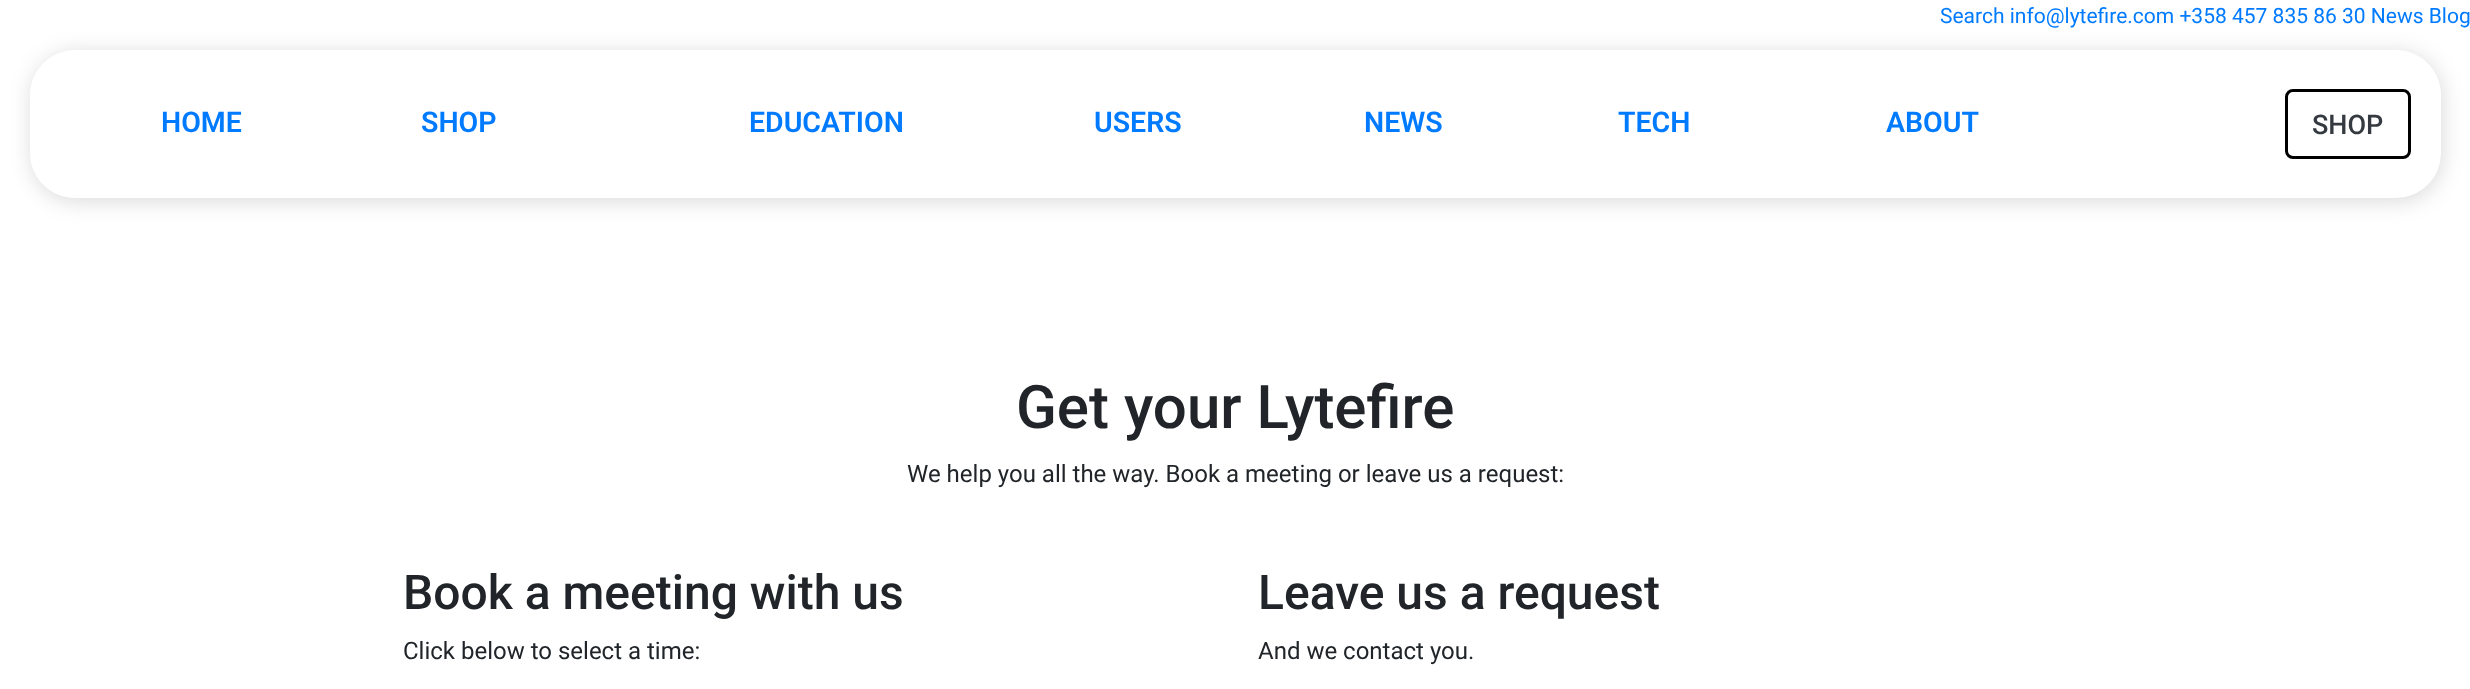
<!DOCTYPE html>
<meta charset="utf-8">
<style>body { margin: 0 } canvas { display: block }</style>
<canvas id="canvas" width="2470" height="689"></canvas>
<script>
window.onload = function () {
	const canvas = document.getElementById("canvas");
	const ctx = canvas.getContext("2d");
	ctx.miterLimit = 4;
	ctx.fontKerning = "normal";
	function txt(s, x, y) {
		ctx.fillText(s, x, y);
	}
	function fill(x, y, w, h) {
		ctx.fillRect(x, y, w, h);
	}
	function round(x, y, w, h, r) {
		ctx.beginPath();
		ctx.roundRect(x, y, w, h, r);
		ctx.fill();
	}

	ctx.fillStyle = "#FFFFFF";
	fill(0, 0, 2470, 689);
	ctx.fillStyle = "rgba(0, 0, 0, 0.15)";
	ctx.filter = "blur(11px)";
	ctx.beginPath();
	ctx.roundRect(32, 53, 2410, 148, 45);
	ctx.fill();
	ctx.filter = "none";
	ctx.fillStyle = "#FFFFFF";
	round(30, 50, 2411, 148, 45);
	ctx.beginPath();
	ctx.roundRect(2286.5, 90.5, 123, 67, 6.5);
	ctx.strokeStyle = "#000000";
	ctx.lineWidth = 3;
	ctx.stroke();
	ctx.font = "21px Roboto";
	ctx.fillStyle = "#007BFF";
	txt("Search info@lytefire.com +358 457 835 86 30 News Blog", 1940, 23);
	ctx.font = "600 28.5px Roboto";
	txt("HOME", 161, 132);
	txt("SHOP", 421, 132);
	txt("EDUCATION", 749, 132);
	txt("USERS", 1094, 132);
	txt("NEWS", 1364, 132);
	txt("TECH", 1618, 132);
	txt("ABOUT", 1886, 132);
	ctx.font = "500 27px Roboto";
	ctx.fillStyle = "#343A40";
	txt("SHOP", 2312, 134);
	ctx.font = "500 60px Roboto";
	ctx.fillStyle = "#212529";
	txt("Get your Lytefire", 1016, 428);
	ctx.font = "24px Roboto";
	txt("We help you all the way. Book a meeting or leave us a request:", 907, 482);
	ctx.font = "500 48px Roboto";
	txt("Book a meeting with us", 403, 609);
	ctx.font = "24px Roboto";
	txt("Click below to select a time:", 403, 659);
	ctx.font = "500 48px Roboto";
	txt("Leave us a request", 1258, 609);
	ctx.font = "24px Roboto";
	txt("And we contact you.", 1258, 659);
};
</script>
